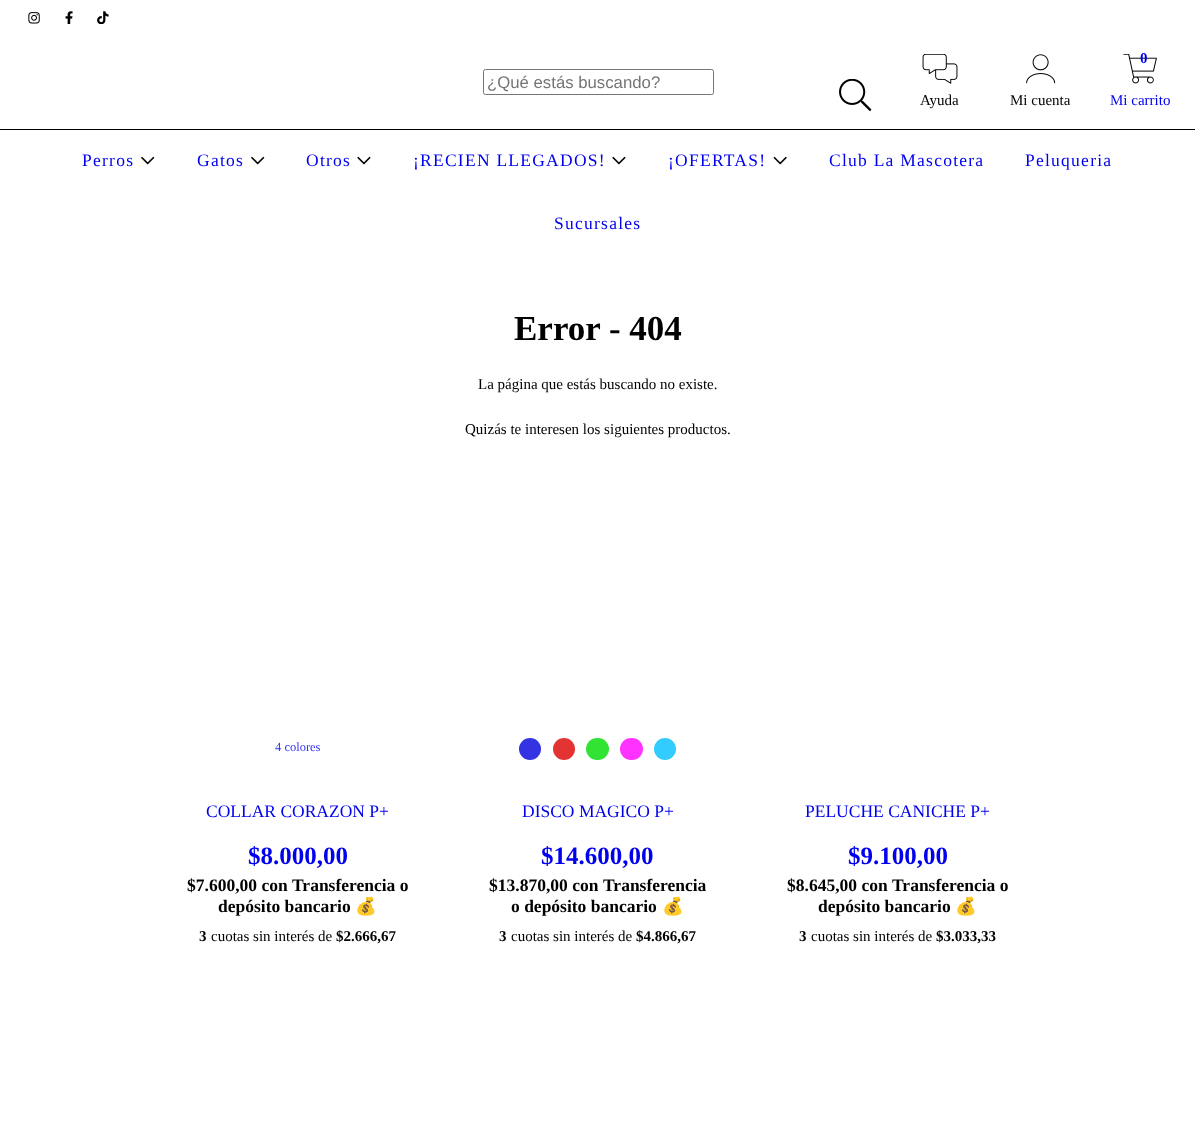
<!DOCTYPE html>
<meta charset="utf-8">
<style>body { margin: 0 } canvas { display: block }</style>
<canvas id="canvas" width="1195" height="1137"></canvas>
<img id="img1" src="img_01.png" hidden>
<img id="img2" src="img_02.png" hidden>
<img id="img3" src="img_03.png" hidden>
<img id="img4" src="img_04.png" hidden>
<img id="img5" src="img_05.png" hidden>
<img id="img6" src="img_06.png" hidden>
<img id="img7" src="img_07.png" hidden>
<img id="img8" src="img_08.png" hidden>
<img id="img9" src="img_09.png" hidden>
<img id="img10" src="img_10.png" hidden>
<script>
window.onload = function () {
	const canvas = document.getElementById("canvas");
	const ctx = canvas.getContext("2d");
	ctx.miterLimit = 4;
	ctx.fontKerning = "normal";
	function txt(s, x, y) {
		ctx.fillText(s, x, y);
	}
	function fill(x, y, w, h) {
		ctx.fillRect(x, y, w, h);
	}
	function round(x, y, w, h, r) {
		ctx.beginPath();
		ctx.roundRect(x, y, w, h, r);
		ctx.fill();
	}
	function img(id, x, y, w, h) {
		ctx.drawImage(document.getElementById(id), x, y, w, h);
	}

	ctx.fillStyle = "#FFFFFF";
	fill(0, 0, 1195, 1137);
	img("img1", 28, 12, 12, 12);
	img("img2", 65, 11, 8, 13);
	img("img3", 97, 11, 12, 13);
	ctx.beginPath();
	ctx.roundRect(483.5, 69.5, 230, 25, 2);
	ctx.strokeStyle = "#767676";
	ctx.stroke();
	img("img4", 839, 79, 33, 32);
	img("img5", 922, 54, 36, 30);
	img("img6", 1026, 54, 30, 30);
	img("img7", 1123, 54, 34, 30);
	ctx.fillStyle = "#000000";
	fill(0, 129, 1195, 1);
	img("img8", 141, 156, 14, 9);
	img("img8", 251, 156, 14, 9);
	img("img9", 357, 156, 14, 9);
	img("img9", 612, 156, 14, 9);
	img("img10", 773, 156, 14, 9);
	ctx.fillStyle = "#3333E3";
	ctx.beginPath();
	ctx.arc(530, 749, 11, 0, Math.PI * 2);
	ctx.fill();
	ctx.fillStyle = "#E33333";
	ctx.beginPath();
	ctx.arc(564, 749, 11, 0, Math.PI * 2);
	ctx.fill();
	ctx.fillStyle = "#33E333";
	round(586, 738, 23, 22, 11);
	ctx.fillStyle = "#FF33FF";
	round(620, 738, 23, 22, 11);
	ctx.fillStyle = "#33CCFF";
	ctx.beginPath();
	ctx.arc(665, 749, 11, 0, Math.PI * 2);
	ctx.fill();
	ctx.font = "16.75px Liberation Sans";
	ctx.fillStyle = "#757575";
	txt("¿Qué estás buscando?", 487, 88);
	ctx.font = "15px Liberation Serif";
	ctx.fillStyle = "#000000";
	txt("Ayuda", 920, 105);
	txt("Mi cuenta", 1010, 105);
	ctx.font = "bold 15px Liberation Serif";
	ctx.fillStyle = "#0000EE";
	txt("0", 1140, 63);
	ctx.font = "15px Liberation Serif";
	txt("Mi carrito", 1110, 105);
	ctx.letterSpacing = "1.25px";
	ctx.font = "17.5px Liberation Serif";
	txt("Perros", 82, 166);
	txt("Gatos", 197, 166);
	txt("Otros", 306, 166);
	txt("¡RECIEN LLEGADOS!", 413, 166);
	txt("¡OFERTAS!", 668, 166);
	txt("Club La Mascotera", 829, 166);
	txt("Peluqueria", 1025, 166);
	txt("Sucursales", 554, 229);
	ctx.letterSpacing = "0px";
	ctx.font = "bold 35px Liberation Serif";
	ctx.fillStyle = "#000000";
	txt("Error - 404", 514, 340);
	ctx.font = "15px Liberation Serif";
	txt("La página que estás buscando no existe.", 478, 389);
	txt("Quizás te interesen los siguientes productos.", 465, 434);
	ctx.font = "12.5px Liberation Serif";
	ctx.fillStyle = "#3333F1";
	txt("4 colores", 275, 751);
	ctx.font = "17.5px Liberation Serif";
	ctx.fillStyle = "#0000EE";
	txt("COLLAR CORAZON P+", 206, 817);
	ctx.font = "bold 25px Liberation Serif";
	txt("$8.000,00", 248, 864);
	ctx.font = "bold 17.5px Liberation Serif";
	ctx.fillStyle = "#000000";
	txt("$7.600,00 con", 187, 891);
	txt("Transferencia o", 292, 891);
	txt("depósito bancario", 218, 912);
	ctx.font = "bold 17.5px Noto Color Emoji";
	txt("💰", 355, 912);
	ctx.font = "bold 15px Liberation Serif";
	txt("3", 199, 941);
	ctx.font = "15px Liberation Serif";
	txt("cuotas sin interés de", 211, 941);
	ctx.font = "bold 15px Liberation Serif";
	txt("$2.666,67", 336, 941);
	ctx.font = "17.5px Liberation Serif";
	ctx.fillStyle = "#0000EE";
	txt("DISCO MAGICO P+", 522, 817);
	ctx.font = "bold 25px Liberation Serif";
	txt("$14.600,00", 541, 864);
	ctx.font = "bold 17.5px Liberation Serif";
	ctx.fillStyle = "#000000";
	txt("$13.870,00 con", 489, 891);
	txt("Transferencia", 603, 891);
	txt("o depósito bancario", 511, 912);
	ctx.font = "bold 17.5px Noto Color Emoji";
	txt("💰", 662, 912);
	ctx.font = "bold 15px Liberation Serif";
	txt("3", 499, 941);
	ctx.font = "15px Liberation Serif";
	txt("cuotas sin interés de", 511, 941);
	ctx.font = "bold 15px Liberation Serif";
	txt("$4.866,67", 636, 941);
	ctx.font = "17.5px Liberation Serif";
	ctx.fillStyle = "#0000EE";
	txt("PELUCHE CANICHE P+", 805, 817);
	ctx.font = "bold 25px Liberation Serif";
	txt("$9.100,00", 848, 864);
	ctx.font = "bold 17.5px Liberation Serif";
	ctx.fillStyle = "#000000";
	txt("$8.645,00 con", 787, 891);
	txt("Transferencia o", 892, 891);
	txt("depósito bancario", 818, 912);
	ctx.font = "bold 17.5px Noto Color Emoji";
	txt("💰", 955, 912);
	ctx.font = "bold 15px Liberation Serif";
	txt("3", 799, 941);
	ctx.font = "15px Liberation Serif";
	txt("cuotas sin interés de", 811, 941);
	ctx.font = "bold 15px Liberation Serif";
	txt("$3.033,33", 936, 941);
};
</script>
